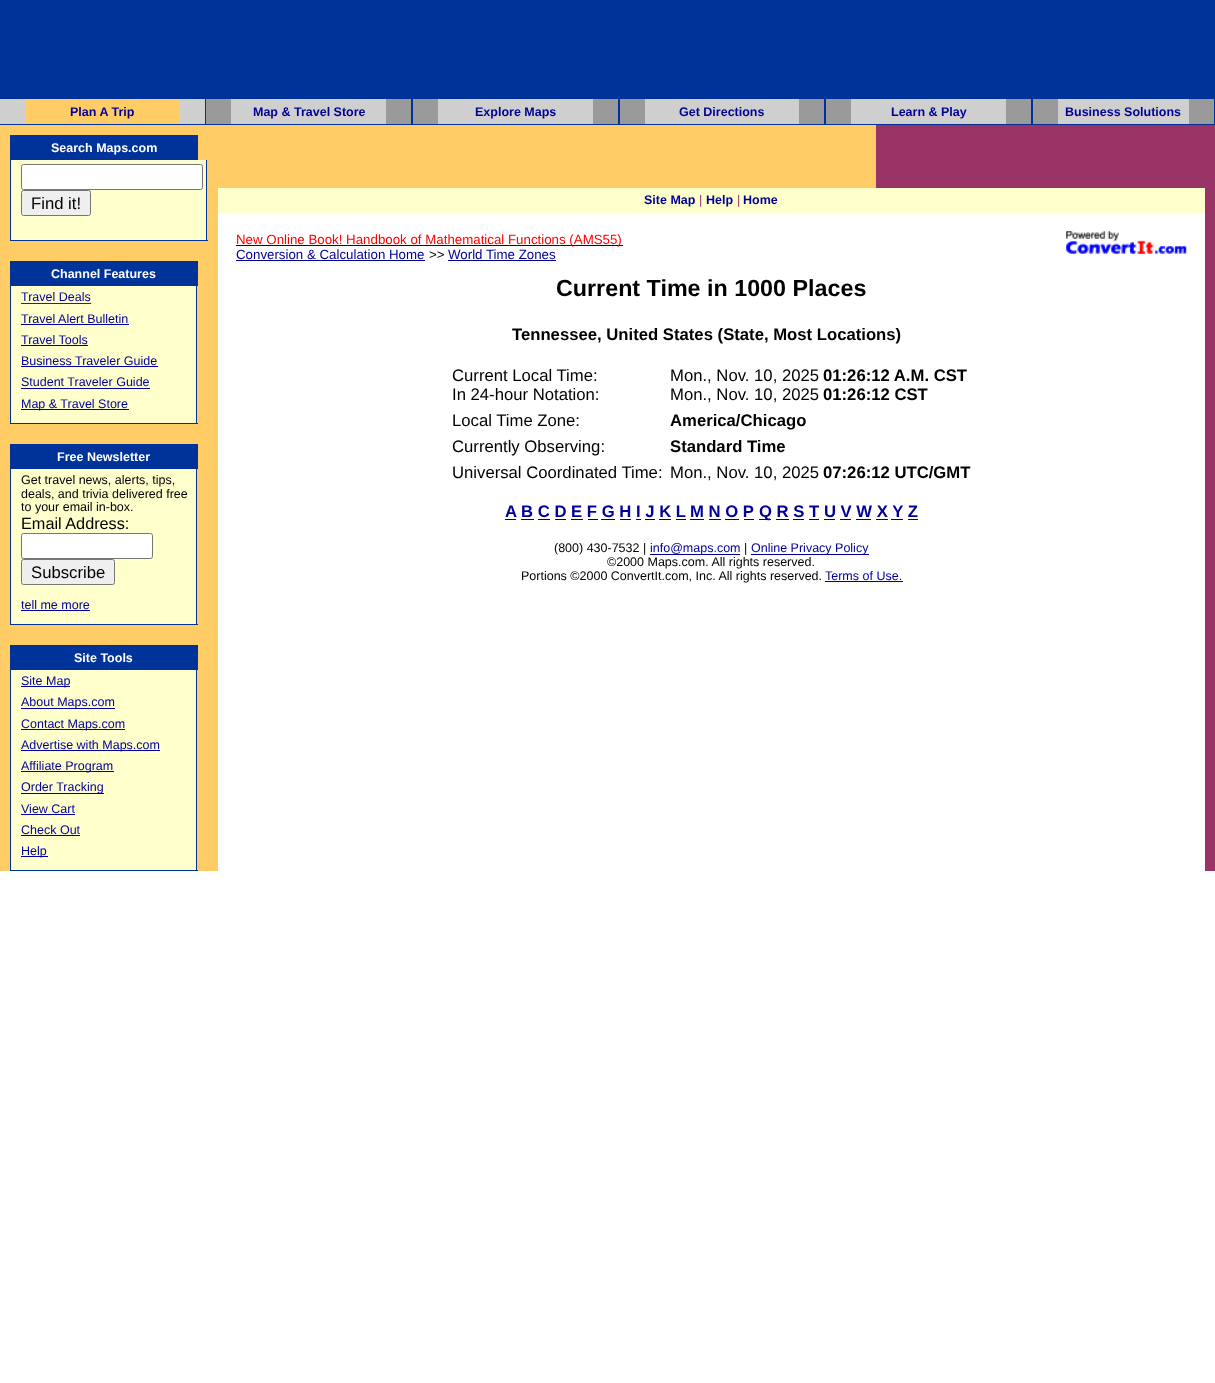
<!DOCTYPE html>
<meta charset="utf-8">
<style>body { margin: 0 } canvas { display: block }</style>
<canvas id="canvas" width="1215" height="1383"></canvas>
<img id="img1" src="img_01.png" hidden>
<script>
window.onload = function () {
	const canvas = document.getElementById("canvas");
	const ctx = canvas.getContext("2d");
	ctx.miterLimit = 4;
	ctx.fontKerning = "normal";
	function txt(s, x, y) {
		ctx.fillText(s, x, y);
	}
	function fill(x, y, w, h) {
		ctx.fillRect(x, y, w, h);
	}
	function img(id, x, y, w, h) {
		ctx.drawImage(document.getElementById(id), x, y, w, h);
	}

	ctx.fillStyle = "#FFFFFF";
	fill(0, 0, 1215, 1383);
	ctx.fillStyle = "#003399";
	fill(0, 0, 1215, 99);
	fill(205, 99, 1010, 25);
	ctx.fillStyle = "#CFCFCF";
	fill(0, 99, 25, 25);
	ctx.fillStyle = "#FFCC66";
	fill(25, 99, 155, 25);
	ctx.fillStyle = "#CFCFCF";
	fill(180, 99, 25, 25);
	ctx.fillStyle = "#9A9A9A";
	fill(206, 99, 25, 25);
	ctx.fillStyle = "#CFCFCF";
	fill(231, 99, 155, 25);
	ctx.fillStyle = "#9A9A9A";
	fill(386, 99, 25, 25);
	fill(413, 99, 25, 25);
	ctx.fillStyle = "#CFCFCF";
	fill(438, 99, 155, 25);
	ctx.fillStyle = "#9A9A9A";
	fill(593, 99, 25, 25);
	fill(620, 99, 25, 25);
	ctx.fillStyle = "#CFCFCF";
	fill(645, 99, 154, 25);
	ctx.fillStyle = "#9A9A9A";
	fill(799, 99, 25, 25);
	fill(826, 99, 25, 25);
	ctx.fillStyle = "#CFCFCF";
	fill(851, 99, 155, 25);
	ctx.fillStyle = "#9A9A9A";
	fill(1006, 99, 25, 25);
	fill(1033, 99, 25, 25);
	ctx.fillStyle = "#CFCFCF";
	fill(1058, 99, 131, 25);
	ctx.fillStyle = "#9A9A9A";
	fill(1189, 99, 25, 25);
	ctx.fillStyle = "#003399";
	fill(0, 124, 1215, 1);
	ctx.fillStyle = "#FFCC66";
	fill(0, 125, 218, 746);
	ctx.fillStyle = "#003399";
	fill(10, 135, 188, 25);
	fill(10, 160, 1, 80);
	ctx.fillStyle = "#FFFFCC";
	fill(11, 160, 195, 80);
	ctx.fillStyle = "#003399";
	fill(206, 160, 1, 80);
	ctx.fillStyle = "#FFFFFF";
	ctx.beginPath();
	ctx.roundRect(21.5, 164.5, 181, 25, 2);
	ctx.fill();
	ctx.strokeStyle = "#767676";
	ctx.stroke();
	ctx.fillStyle = "#EFEFEF";
	ctx.beginPath();
	ctx.roundRect(21.5, 190.5, 69, 25, 2);
	ctx.fill();
	ctx.stroke();
	ctx.fillStyle = "#003399";
	fill(10, 240, 198, 1);
	fill(10, 261, 188, 25);
	fill(10, 286, 1, 137);
	ctx.fillStyle = "#FFFFCC";
	fill(11, 286, 185, 137);
	ctx.fillStyle = "#003399";
	fill(196, 286, 1, 137);
	fill(21, 303, 70, 1);
	ctx.fillStyle = "#000099";
	fill(21, 324, 108, 1);
	fill(21, 345, 67, 1);
	fill(21, 366, 137, 1);
	fill(21, 388, 129, 1);
	fill(21, 409, 108, 1);
	ctx.fillStyle = "#003399";
	fill(10, 423, 188, 1);
	fill(10, 444, 188, 25);
	fill(10, 469, 1, 155);
	ctx.fillStyle = "#FFFFCC";
	fill(11, 469, 185, 155);
	ctx.fillStyle = "#003399";
	fill(196, 469, 1, 155);
	ctx.fillStyle = "#FFFFFF";
	ctx.beginPath();
	ctx.roundRect(21.5, 533.5, 131, 25, 2);
	ctx.fill();
	ctx.stroke();
	ctx.fillStyle = "#EFEFEF";
	ctx.beginPath();
	ctx.roundRect(21.5, 559.5, 93, 25, 2);
	ctx.fill();
	ctx.stroke();
	ctx.fillStyle = "#000099";
	fill(21, 610, 69, 1);
	ctx.fillStyle = "#003399";
	fill(10, 624, 188, 1);
	fill(10, 645, 188, 25);
	fill(10, 670, 1, 200);
	ctx.fillStyle = "#FFFFCC";
	fill(11, 670, 185, 200);
	ctx.fillStyle = "#003399";
	fill(196, 670, 1, 200);
	ctx.fillStyle = "#000099";
	fill(21, 686, 49, 1);
	fill(21, 708, 94, 1);
	fill(21, 729, 104, 1);
	fill(21, 750, 139, 1);
	fill(21, 771, 93, 1);
	fill(21, 793, 83, 1);
	fill(21, 814, 54, 1);
	fill(21, 835, 59, 1);
	fill(21, 856, 27, 1);
	ctx.fillStyle = "#003399";
	fill(10, 870, 188, 1);
	ctx.fillStyle = "#FFCC66";
	fill(218, 125, 658, 63);
	ctx.fillStyle = "#993365";
	fill(876, 125, 329, 63);
	ctx.fillStyle = "#FFFFCC";
	fill(218, 188, 987, 25);
	ctx.fillStyle = "#000099";
	fill(236, 245, 387, 1);
	img("img1", 1066, 231, 121, 23);
	fill(236, 260, 189, 1);
	fill(448, 260, 108, 1);
	fill(505, 519, 11, 1);
	fill(521, 519, 13, 1);
	fill(690, 519, 14, 1);
	fill(759, 519, 12, 1);
	fill(538, 519, 12, 1);
	fill(555, 519, 11, 1);
	fill(571, 519, 12, 1);
	fill(588, 519, 10, 1);
	fill(601, 519, 14, 1);
	fill(620, 519, 11, 1);
	fill(636, 519, 5, 1);
	fill(645, 519, 10, 1);
	fill(659, 519, 12, 1);
	fill(676, 519, 10, 1);
	fill(709, 519, 12, 1);
	fill(725, 519, 14, 1);
	fill(744, 519, 10, 1);
	fill(776, 519, 13, 1);
	fill(793, 519, 11, 1);
	fill(809, 519, 10, 1);
	fill(824, 519, 11, 1);
	fill(840, 519, 11, 1);
	fill(856, 519, 15, 1);
	fill(876, 519, 12, 1);
	fill(891, 519, 12, 1);
	fill(908, 519, 10, 1);
	fill(650, 554, 90, 1);
	fill(751, 554, 118, 1);
	fill(825, 581, 78, 1);
	ctx.fillStyle = "#993365";
	fill(1205, 125, 10, 746);
	ctx.font = "bold 12.5px Liberation Sans";
	ctx.fillStyle = "#000099";
	txt("Plan A Trip", 70, 116);
	txt("Map & Travel Store", 253, 116);
	txt("Explore Maps", 475, 116);
	txt("Get Directions", 679, 116);
	txt("Learn & Play", 891, 116);
	txt("Business Solutions", 1065, 116);
	ctx.fillStyle = "#FFFFFF";
	txt("Search Maps.com", 51, 152);
	ctx.font = "16.7px Liberation Sans";
	ctx.fillStyle = "#000000";
	txt("Find it!", 31, 209);
	ctx.font = "bold 12.5px Liberation Sans";
	ctx.fillStyle = "#FFFFFF";
	txt("Channel Features", 51, 278);
	ctx.font = "12.5px Liberation Sans";
	ctx.fillStyle = "#000099";
	txt("Travel Deals", 21, 301);
	txt("Travel Alert Bulletin", 21, 323);
	txt("Travel Tools", 21, 344);
	txt("Business Traveler Guide", 21, 365);
	txt("Student Traveler Guide", 21, 386);
	txt("Map & Travel Store", 21, 408);
	ctx.font = "bold 12.5px Liberation Sans";
	ctx.fillStyle = "#FFFFFF";
	txt("Free Newsletter", 57, 461);
	ctx.font = "12.5px Liberation Sans";
	ctx.fillStyle = "#000000";
	txt("Get travel news, alerts, tips,", 21, 484);
	txt("deals, and trivia delivered free", 21, 498);
	txt("to your email in-box.", 21, 511);
	ctx.font = "16.25px Liberation Sans";
	txt("Email Address:", 21, 529);
	ctx.font = "16.7px Liberation Sans";
	txt("Subscribe", 31, 578);
	ctx.font = "12.5px Liberation Sans";
	ctx.fillStyle = "#000099";
	txt("tell me more", 21, 609);
	ctx.font = "bold 12.5px Liberation Sans";
	ctx.fillStyle = "#FFFFFF";
	txt("Site Tools", 74, 662);
	ctx.font = "12.5px Liberation Sans";
	ctx.fillStyle = "#000099";
	txt("Site Map", 21, 685);
	txt("About Maps.com", 21, 706);
	txt("Contact Maps.com", 21, 728);
	txt("Advertise with Maps.com", 21, 749);
	txt("Affiliate Program", 21, 770);
	txt("Order Tracking", 21, 791);
	txt("View Cart", 21, 813);
	txt("Check Out", 21, 834);
	txt("Help", 21, 855);
	ctx.font = "bold 12.5px Liberation Sans";
	txt("Site Map", 644, 204);
	ctx.font = "12.5px Liberation Sans";
	ctx.fillStyle = "#993365";
	txt("|", 699, 204);
	ctx.font = "bold 12.5px Liberation Sans";
	ctx.fillStyle = "#000099";
	txt("Help", 706, 204);
	ctx.font = "12.5px Liberation Sans";
	ctx.fillStyle = "#993365";
	txt("|", 737, 204);
	ctx.font = "bold 12.5px Liberation Sans";
	ctx.fillStyle = "#000099";
	txt("Home", 743, 204);
	ctx.font = "13.3px Liberation Sans";
	ctx.fillStyle = "#FF0000";
	txt("New Online Book! Handbook of Mathematical Functions (AMS55)", 236, 244);
	ctx.fillStyle = "#000099";
	txt("Conversion & Calculation Home", 236, 259);
	ctx.fillStyle = "#000000";
	txt(">>", 429, 259);
	ctx.fillStyle = "#000099";
	txt("World Time Zones", 448, 259);
	ctx.font = "bold 23.3px Liberation Sans";
	ctx.fillStyle = "#000000";
	txt("Current Time in 1000 Places", 556, 296);
	ctx.font = "bold 16.7px Liberation Sans";
	txt("Tennessee, United States (State, Most Locations)", 512, 340);
	ctx.font = "16.7px Liberation Sans";
	txt("Current Local Time:", 452, 381);
	txt("In 24-hour Notation:", 452, 400);
	txt("Mon., Nov. 10, 2025", 670, 381);
	ctx.font = "bold 16.7px Liberation Sans";
	txt("01:26:12 A.M. CST", 823, 381);
	ctx.font = "16.7px Liberation Sans";
	txt("Mon., Nov. 10, 2025", 670, 400);
	ctx.font = "bold 16.7px Liberation Sans";
	txt("01:26:12 CST", 823, 400);
	ctx.font = "16.7px Liberation Sans";
	txt("Local Time Zone:", 452, 426);
	ctx.font = "bold 16.7px Liberation Sans";
	txt("America/Chicago", 670, 426);
	ctx.font = "16.7px Liberation Sans";
	txt("Currently Observing:", 452, 452);
	ctx.font = "bold 16.7px Liberation Sans";
	txt("Standard Time", 670, 452);
	ctx.font = "16.7px Liberation Sans";
	txt("Universal Coordinated Time:", 452, 478);
	txt("Mon., Nov. 10, 2025", 670, 478);
	ctx.font = "bold 16.7px Liberation Sans";
	txt("07:26:12 UTC/GMT", 823, 478);
	ctx.fillStyle = "#000099";
	txt("A", 505, 517);
	txt("B C D E F G H I J K L", 521, 517);
	txt("M N O P", 690, 517);
	txt("Q R S T U V W X Y Z", 759, 517);
	ctx.font = "12.5px Liberation Sans";
	ctx.fillStyle = "#000000";
	txt("(800) 430-7532 |", 554, 552);
	ctx.fillStyle = "#000099";
	txt("info@maps.com", 650, 552);
	ctx.fillStyle = "#000000";
	txt("|", 744, 552);
	ctx.fillStyle = "#000099";
	txt("Online Privacy Policy", 751, 552);
	ctx.fillStyle = "#000000";
	txt("©2000 Maps.com. All rights reserved.", 607, 566);
	txt("Portions ©2000 ConvertIt.com, Inc. All rights reserved.", 521, 580);
	ctx.fillStyle = "#000099";
	txt("Terms of Use.", 825, 580);
};
</script>
